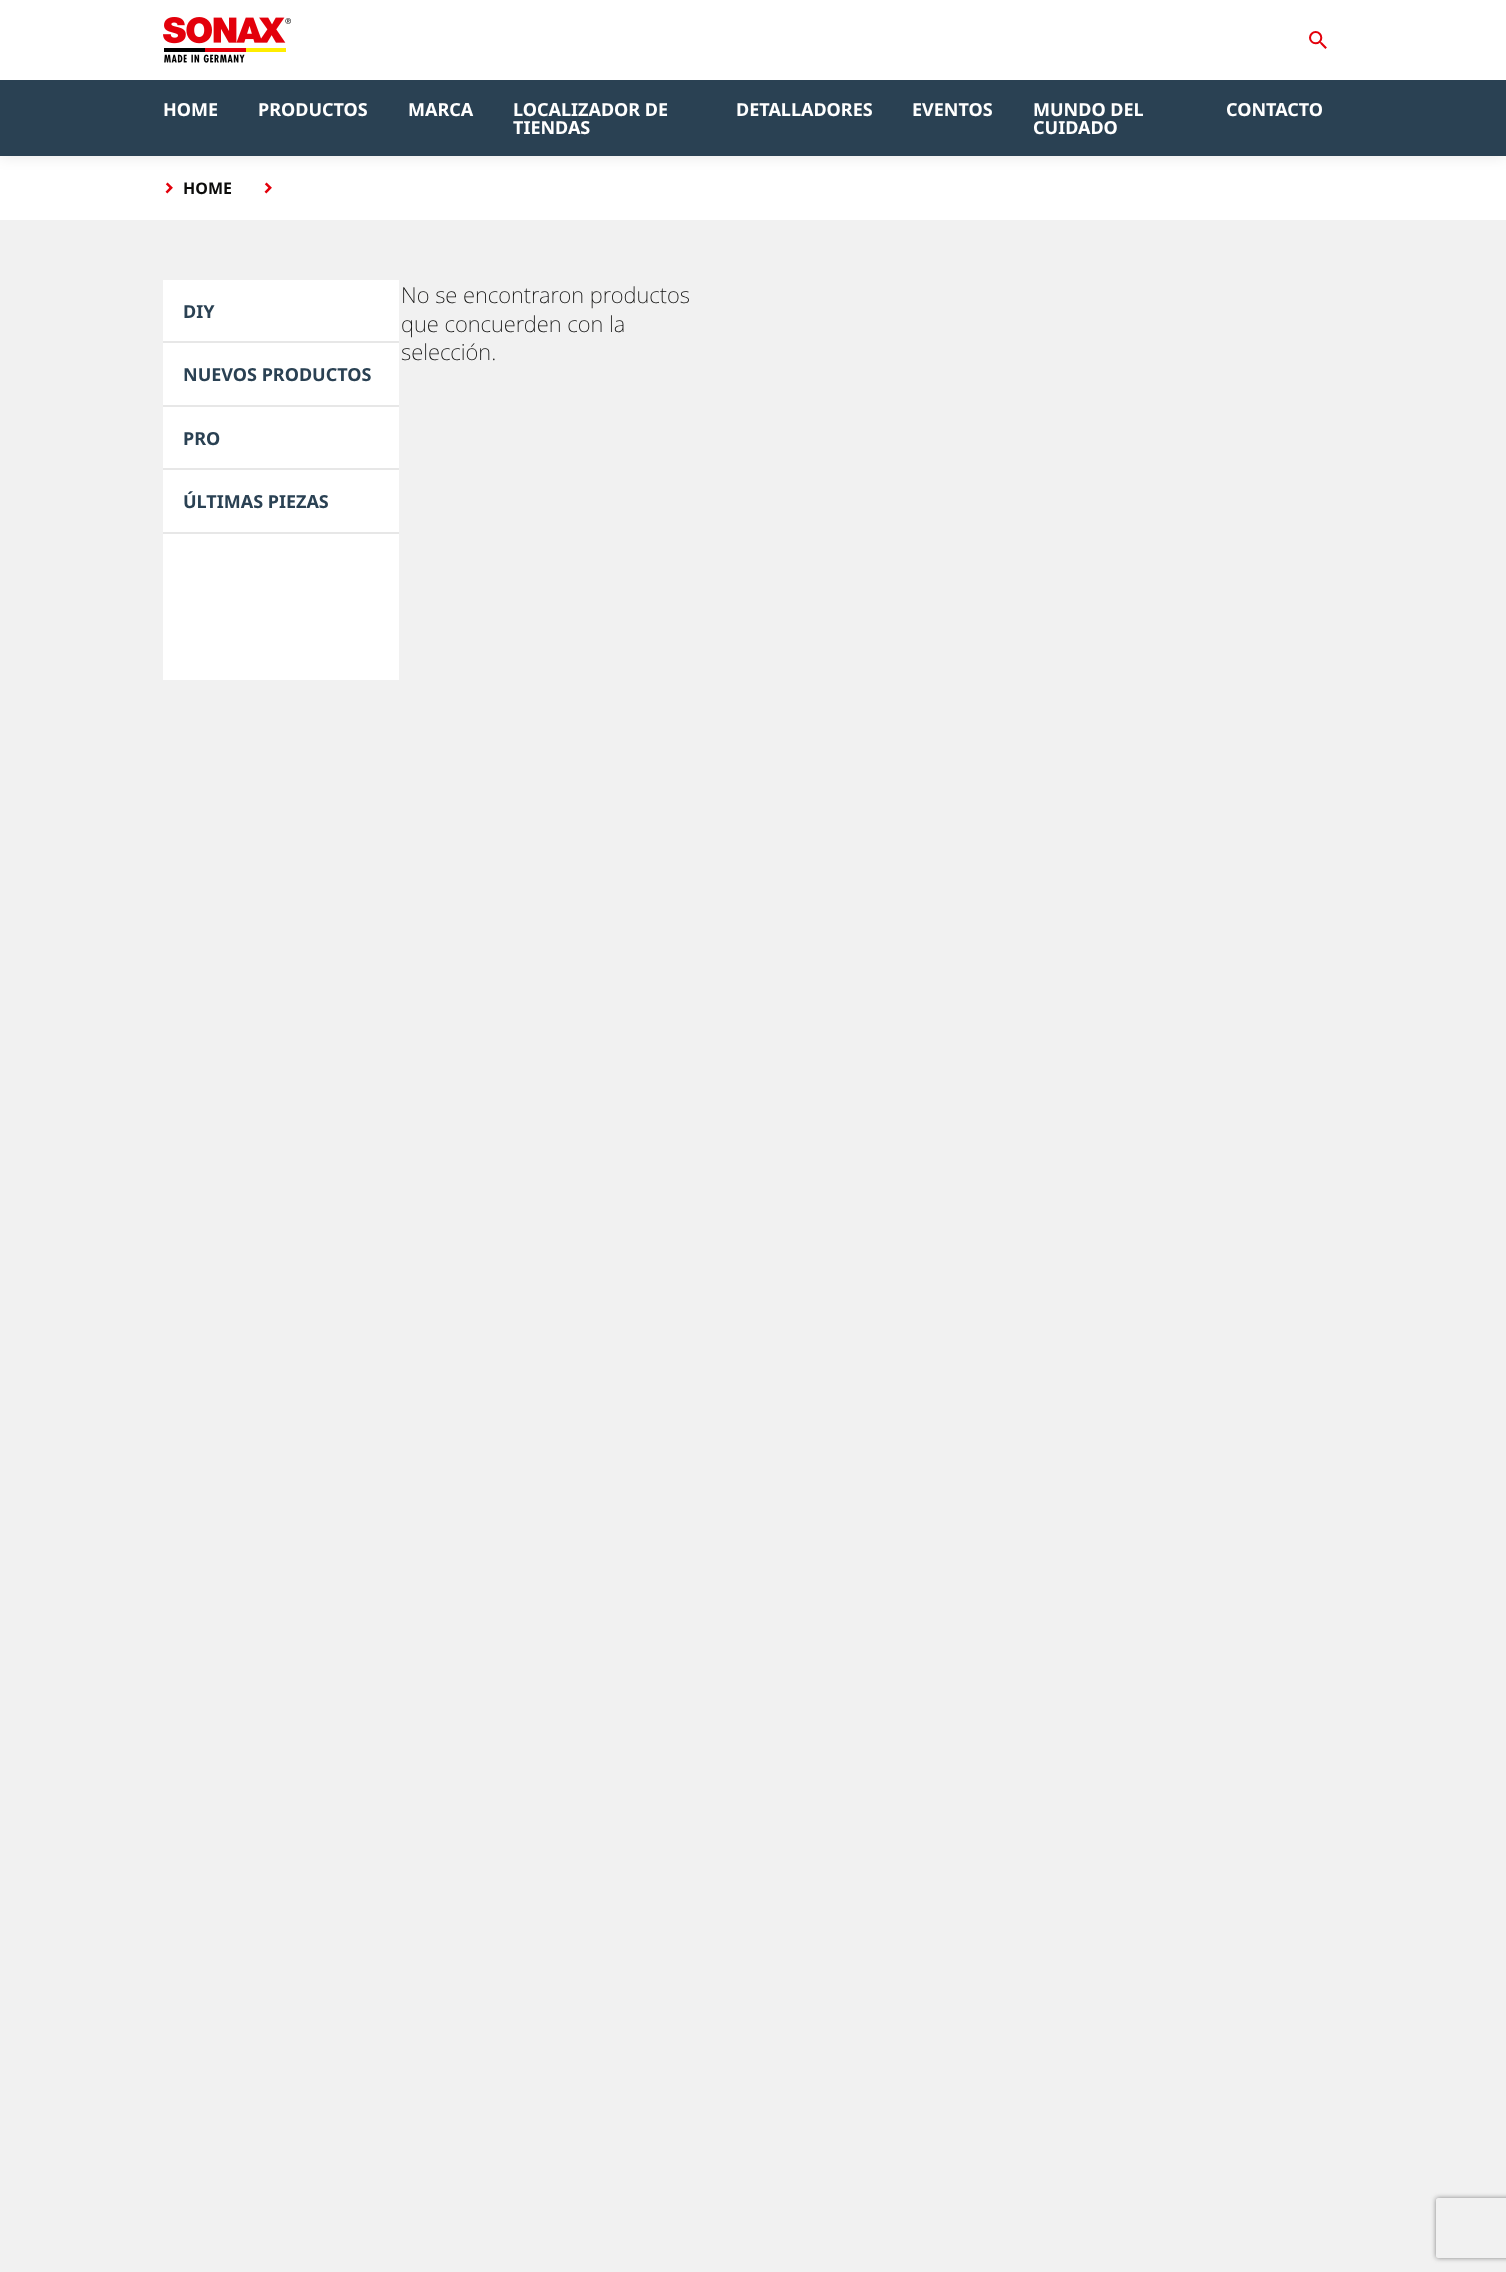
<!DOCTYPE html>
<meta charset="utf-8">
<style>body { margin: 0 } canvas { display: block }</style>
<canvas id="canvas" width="1506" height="2272"></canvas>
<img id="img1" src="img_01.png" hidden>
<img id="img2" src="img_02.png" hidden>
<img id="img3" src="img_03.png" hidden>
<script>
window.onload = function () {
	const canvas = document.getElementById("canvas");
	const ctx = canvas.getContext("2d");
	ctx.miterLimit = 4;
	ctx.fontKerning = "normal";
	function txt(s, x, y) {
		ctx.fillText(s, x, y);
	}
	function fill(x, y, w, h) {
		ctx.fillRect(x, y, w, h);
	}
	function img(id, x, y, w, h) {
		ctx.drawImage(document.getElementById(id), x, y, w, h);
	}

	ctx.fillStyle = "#F1F1F1";
	fill(0, 0, 1506, 2272);
	ctx.fillStyle = "#FFFFFF";
	fill(0, 156, 1506, 64);
	ctx.fillStyle = "rgba(0, 0, 0, 0.1)";
	ctx.filter = "blur(7.5px)";
	ctx.beginPath();
	ctx.rect(0, 0, 1506, 156);
	ctx.fill();
	ctx.filter = "none";
	ctx.fillStyle = "#FFFFFF";
	fill(0, 0, 1506, 80);
	img("img1", 163, 17, 128, 46);
	img("img2", 1309, 31, 18, 18);
	ctx.fillStyle = "#2A4153";
	fill(0, 80, 1506, 76);
	img("img3", 165, 182, 8, 12);
	img("img3", 264, 182, 8, 12);
	ctx.fillStyle = "#FFFFFF";
	fill(163, 280, 236, 400);
	ctx.fillStyle = "#E7E7E7";
	fill(163, 341, 236, 2);
	fill(163, 405, 236, 2);
	fill(163, 468, 236, 2);
	fill(163, 532, 236, 2);
	ctx.save();
	ctx.beginPath();
	ctx.moveTo(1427, 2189);
	ctx.lineTo(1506, 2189);
	ctx.lineTo(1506, 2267);
	ctx.lineTo(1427, 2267);
	ctx.closePath();
	ctx.moveTo(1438, 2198);
	ctx.lineTo(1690, 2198);
	ctx.bezierCurveTo(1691, 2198, 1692, 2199, 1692, 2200);
	ctx.lineTo(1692, 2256);
	ctx.bezierCurveTo(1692, 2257, 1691, 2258, 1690, 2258);
	ctx.lineTo(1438, 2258);
	ctx.bezierCurveTo(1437, 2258, 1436, 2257, 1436, 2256);
	ctx.lineTo(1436, 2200);
	ctx.bezierCurveTo(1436, 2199, 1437, 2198, 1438, 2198);
	ctx.closePath();
	ctx.clip("evenodd");
	ctx.fillStyle = "#808080";
	ctx.filter = "blur(2.5px)";
	ctx.beginPath();
	ctx.roundRect(1436, 2198, 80, 60, 2);
	ctx.fill();
	ctx.filter = "none";
	ctx.restore();
	ctx.font = "bold 18px Noto Sans";
	ctx.fillStyle = "#FFFFFF";
	txt("HOME", 163, 116);
	txt("PRODUCTOS", 258, 116);
	txt("MARCA", 408, 116);
	txt("LOCALIZADOR DE", 513, 116);
	txt("TIENDAS", 513, 134);
	txt("DETALLADORES", 736, 116);
	txt("EVENTOS", 912, 116);
	txt("MUNDO DEL", 1033, 116);
	txt("CUIDADO", 1033, 134);
	txt("CONTACTO", 1226, 116);
	ctx.font = "bold 16px Noto Sans";
	ctx.fillStyle = "#0C0C0B";
	txt("HOME", 183, 194);
	ctx.font = "bold 18px Noto Sans";
	ctx.fillStyle = "#2A4153";
	txt("DIY", 183, 318);
	txt("NUEVOS PRODUCTOS", 183, 381);
	txt("PRO", 183, 445);
	txt("ÚLTIMAS PIEZAS", 183, 508);
	ctx.font = "200 22px Noto Sans";
	ctx.fillStyle = "#0C0C0B";
	txt("No se encontraron productos", 401, 303);
	txt("que concuerden con la", 401, 332);
	txt("selección.", 401, 360);
};
</script>
